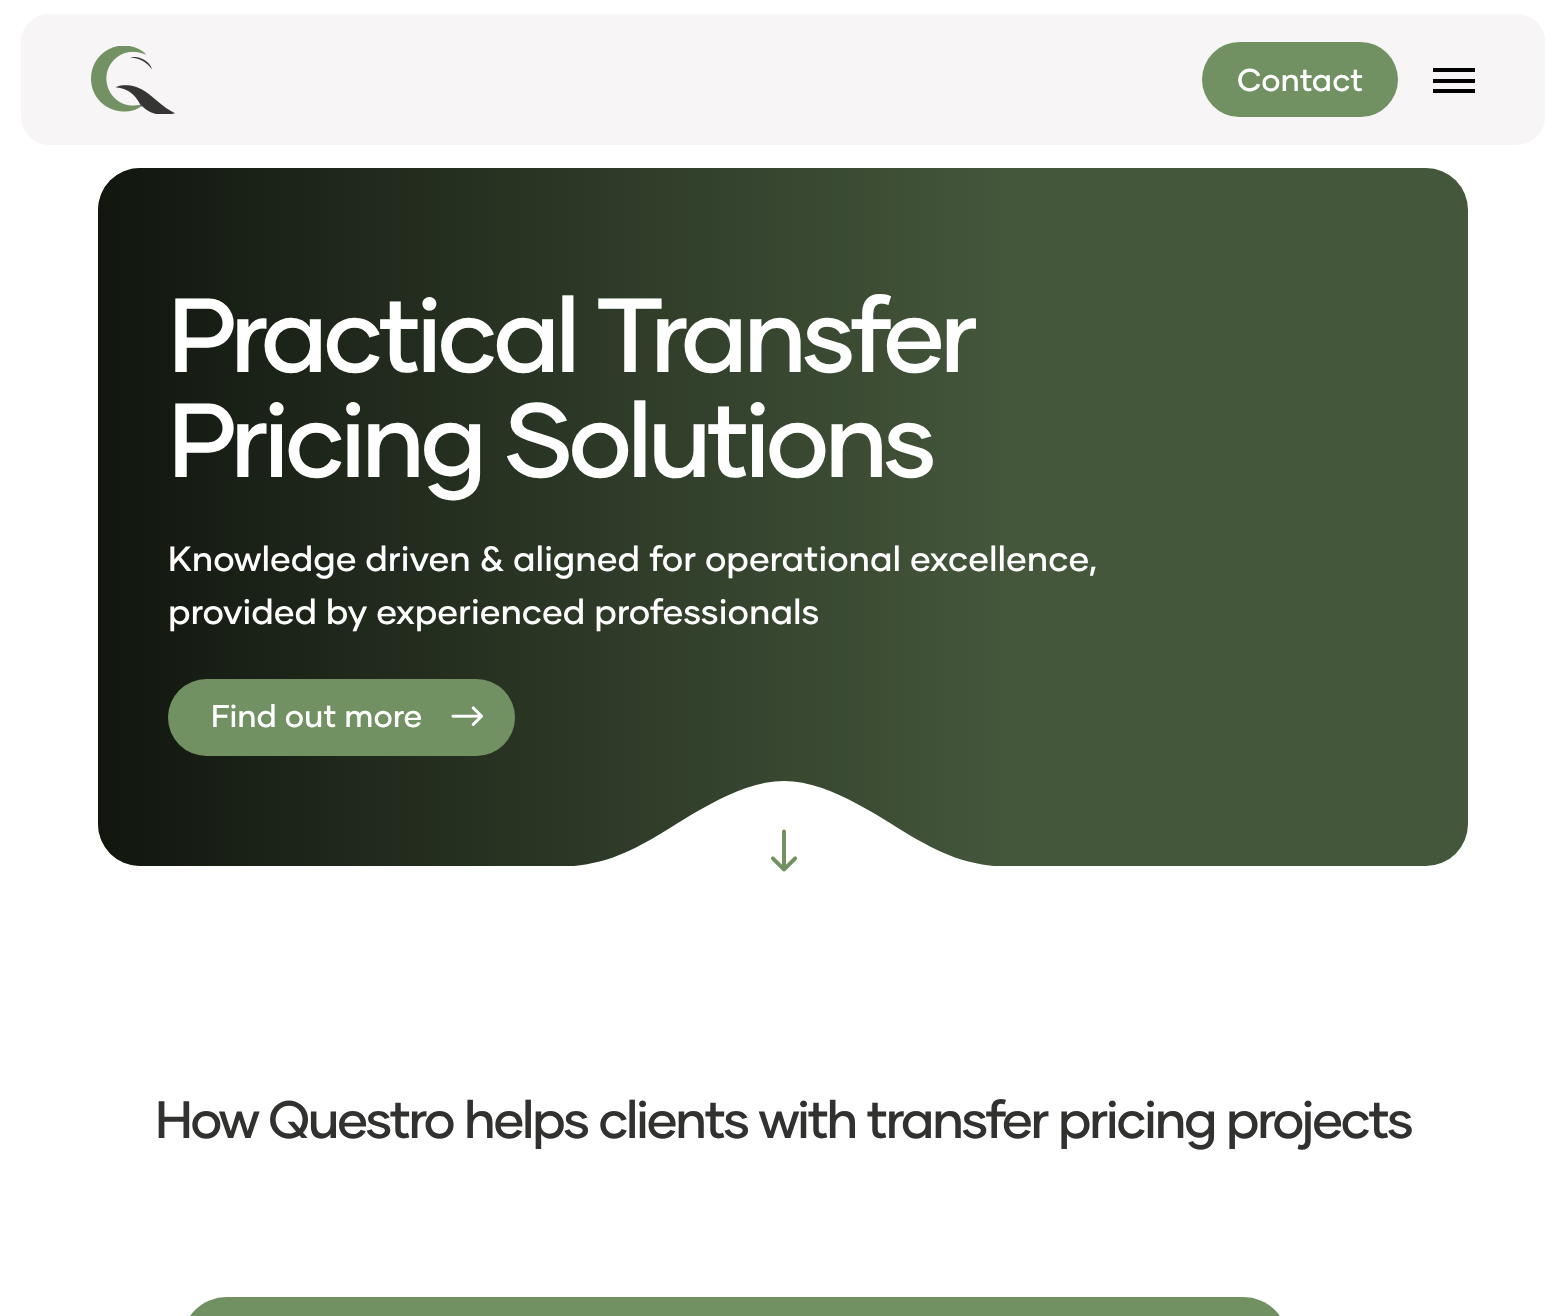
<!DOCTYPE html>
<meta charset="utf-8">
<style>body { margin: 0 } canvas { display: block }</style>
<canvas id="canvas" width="1565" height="1316"></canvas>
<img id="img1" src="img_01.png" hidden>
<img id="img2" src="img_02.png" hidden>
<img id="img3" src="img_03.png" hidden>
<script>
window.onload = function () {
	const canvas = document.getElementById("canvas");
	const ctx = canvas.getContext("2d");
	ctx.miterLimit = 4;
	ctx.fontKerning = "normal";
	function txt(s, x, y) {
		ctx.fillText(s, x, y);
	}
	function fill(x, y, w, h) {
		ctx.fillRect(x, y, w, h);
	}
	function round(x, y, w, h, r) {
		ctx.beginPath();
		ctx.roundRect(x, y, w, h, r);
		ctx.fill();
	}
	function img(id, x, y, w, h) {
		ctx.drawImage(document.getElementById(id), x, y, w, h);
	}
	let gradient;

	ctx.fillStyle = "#FFFFFF";
	fill(0, 0, 1565, 1316);
	ctx.fillStyle = "#F7F5F5";
	round(21, 14, 1524, 131, 28);
	img("img1", 91, 46, 84, 68);
	ctx.fillStyle = "#719162";
	round(1202, 42, 196, 75, 37.5);
	ctx.fillStyle = "#000000";
	fill(1433, 68, 42, 4);
	fill(1433, 79, 42, 4);
	fill(1433, 89, 42, 4);
	ctx.fillStyle = "#44573B";
	round(98, 168, 1370, 698, 42);
	gradient = ctx.createLinearGradient(98, 517, 1012, 517);
	gradient.addColorStop(0, "rgba(0, 0, 0, 0.75)");
	gradient.addColorStop(1, "rgba(0, 0, 0, 0)");
	ctx.fillStyle = gradient;
	ctx.beginPath();
	ctx.roundRect(98, 168, 914, 698, [42, 0, 0, 42]);
	ctx.fill();
	ctx.fillStyle = "#719162";
	round(168, 679, 347, 77, 38.5);
	img("img2", 451, 706, 32, 20);
	ctx.fillStyle = "#FFFFFF";
	ctx.beginPath();
	ctx.moveTo(532, 868);
	ctx.bezierCurveTo(591, 868, 614, 860, 650, 840);
	ctx.bezierCurveTo(681, 823, 735, 781, 784, 781);
	ctx.bezierCurveTo(833, 781, 887, 823, 918, 840);
	ctx.bezierCurveTo(954, 860, 977, 868, 1036, 868);
	ctx.closePath();
	ctx.fill();
	img("img3", 770, 829, 28, 43);
	ctx.fillStyle = "#719162";
	round(182, 1297, 1106, 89, 70);
	ctx.font = "500 31.5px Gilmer";
	ctx.fillStyle = "#FFFFFF";
	txt("Contact", 1237, 91);
	ctx.letterSpacing = "-5.25px";
	ctx.font = "500 105px Gilmer";
	txt("Practical Transfer", 168, 372);
	txt("Pricing Solutions", 168, 477);
	ctx.letterSpacing = "0px";
	ctx.font = "500 35px Gilmer";
	txt("Knowledge driven & aligned for operational excellence,", 168, 571);
	txt("provided by experienced professionals", 168, 624);
	ctx.font = "500 31.5px Gilmer";
	txt("Find out more", 211, 727);
	ctx.letterSpacing = "-2.62px";
	ctx.font = "500 52.5px Gilmer";
	ctx.fillStyle = "#31312F";
	txt("How Questro helps clients with transfer pricing projects", 155, 1138);
};
</script>
